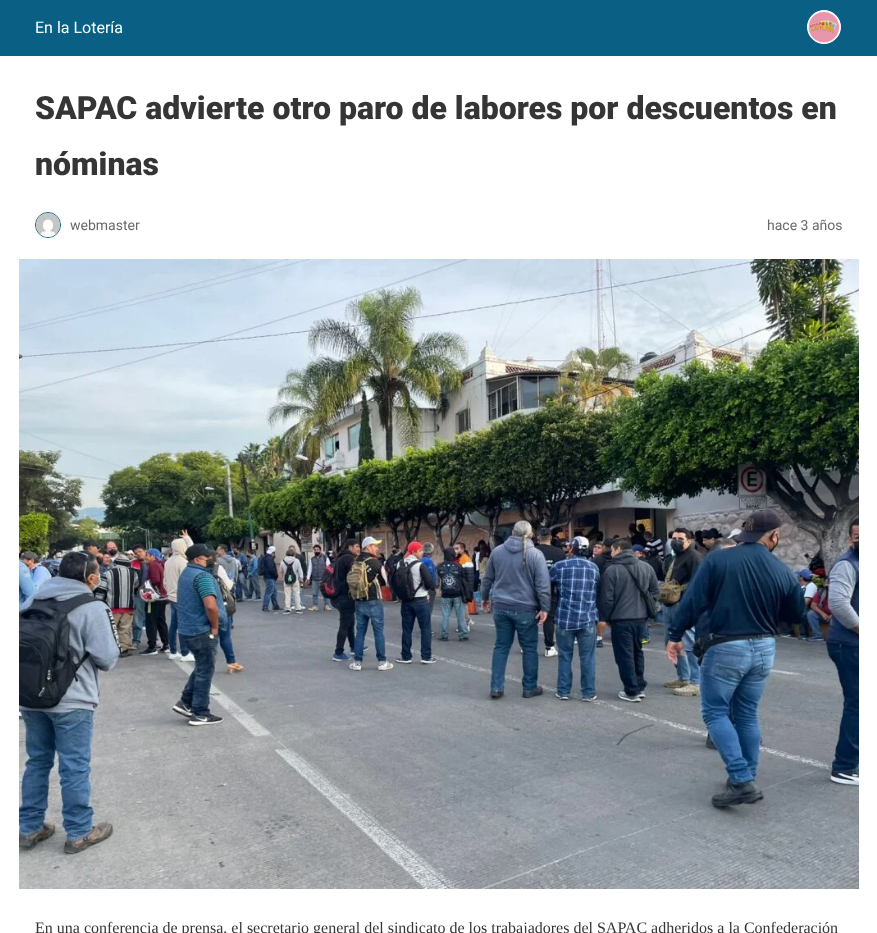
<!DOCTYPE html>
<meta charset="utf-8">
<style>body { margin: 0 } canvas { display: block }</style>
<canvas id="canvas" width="877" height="933"></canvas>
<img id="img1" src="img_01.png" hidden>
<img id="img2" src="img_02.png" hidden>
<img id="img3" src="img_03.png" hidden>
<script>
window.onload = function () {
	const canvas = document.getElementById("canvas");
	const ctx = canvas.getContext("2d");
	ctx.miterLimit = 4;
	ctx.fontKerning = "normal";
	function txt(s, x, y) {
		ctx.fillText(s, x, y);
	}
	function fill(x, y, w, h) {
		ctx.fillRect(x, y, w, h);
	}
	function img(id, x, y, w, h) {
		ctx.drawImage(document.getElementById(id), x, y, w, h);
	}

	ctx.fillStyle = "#FFFFFF";
	fill(0, 0, 877, 933);
	ctx.fillStyle = "#0A5F85";
	fill(0, 0, 877, 56);
	ctx.fillStyle = "#FFFFFF";
	ctx.beginPath();
	ctx.arc(824, 27, 16.5, 0, Math.PI * 2);
	ctx.fill();
	ctx.strokeStyle = "#FFFFFF";
	ctx.stroke();
	img("img1", 808, 11, 32, 32);
	ctx.beginPath();
	ctx.arc(48, 225, 12.5, 0, Math.PI * 2);
	ctx.strokeStyle = "#0A5F85";
	ctx.stroke();
	img("img2", 36, 213, 24, 24);
	img("img3", 19, 259, 840, 630);
	ctx.font = "16px Roboto";
	txt("En la Lotería", 35, 33);
	ctx.font = "900 32px Roboto";
	ctx.fillStyle = "#353535";
	txt("SAPAC advierte otro paro de labores por descuentos en", 35, 119);
	txt("nóminas", 35, 175);
	ctx.font = "14px Roboto";
	ctx.fillStyle = "#696969";
	txt("webmaster", 70, 230);
	txt("hace 3 años", 767, 230);
	ctx.font = "16px Liberation Serif";
	ctx.fillStyle = "#353535";
	txt("En una conferencia de prensa, el secretario general del sindicato de los trabajadores del SAPAC adheridos a la Confederación", 35, 933);
};
</script>
